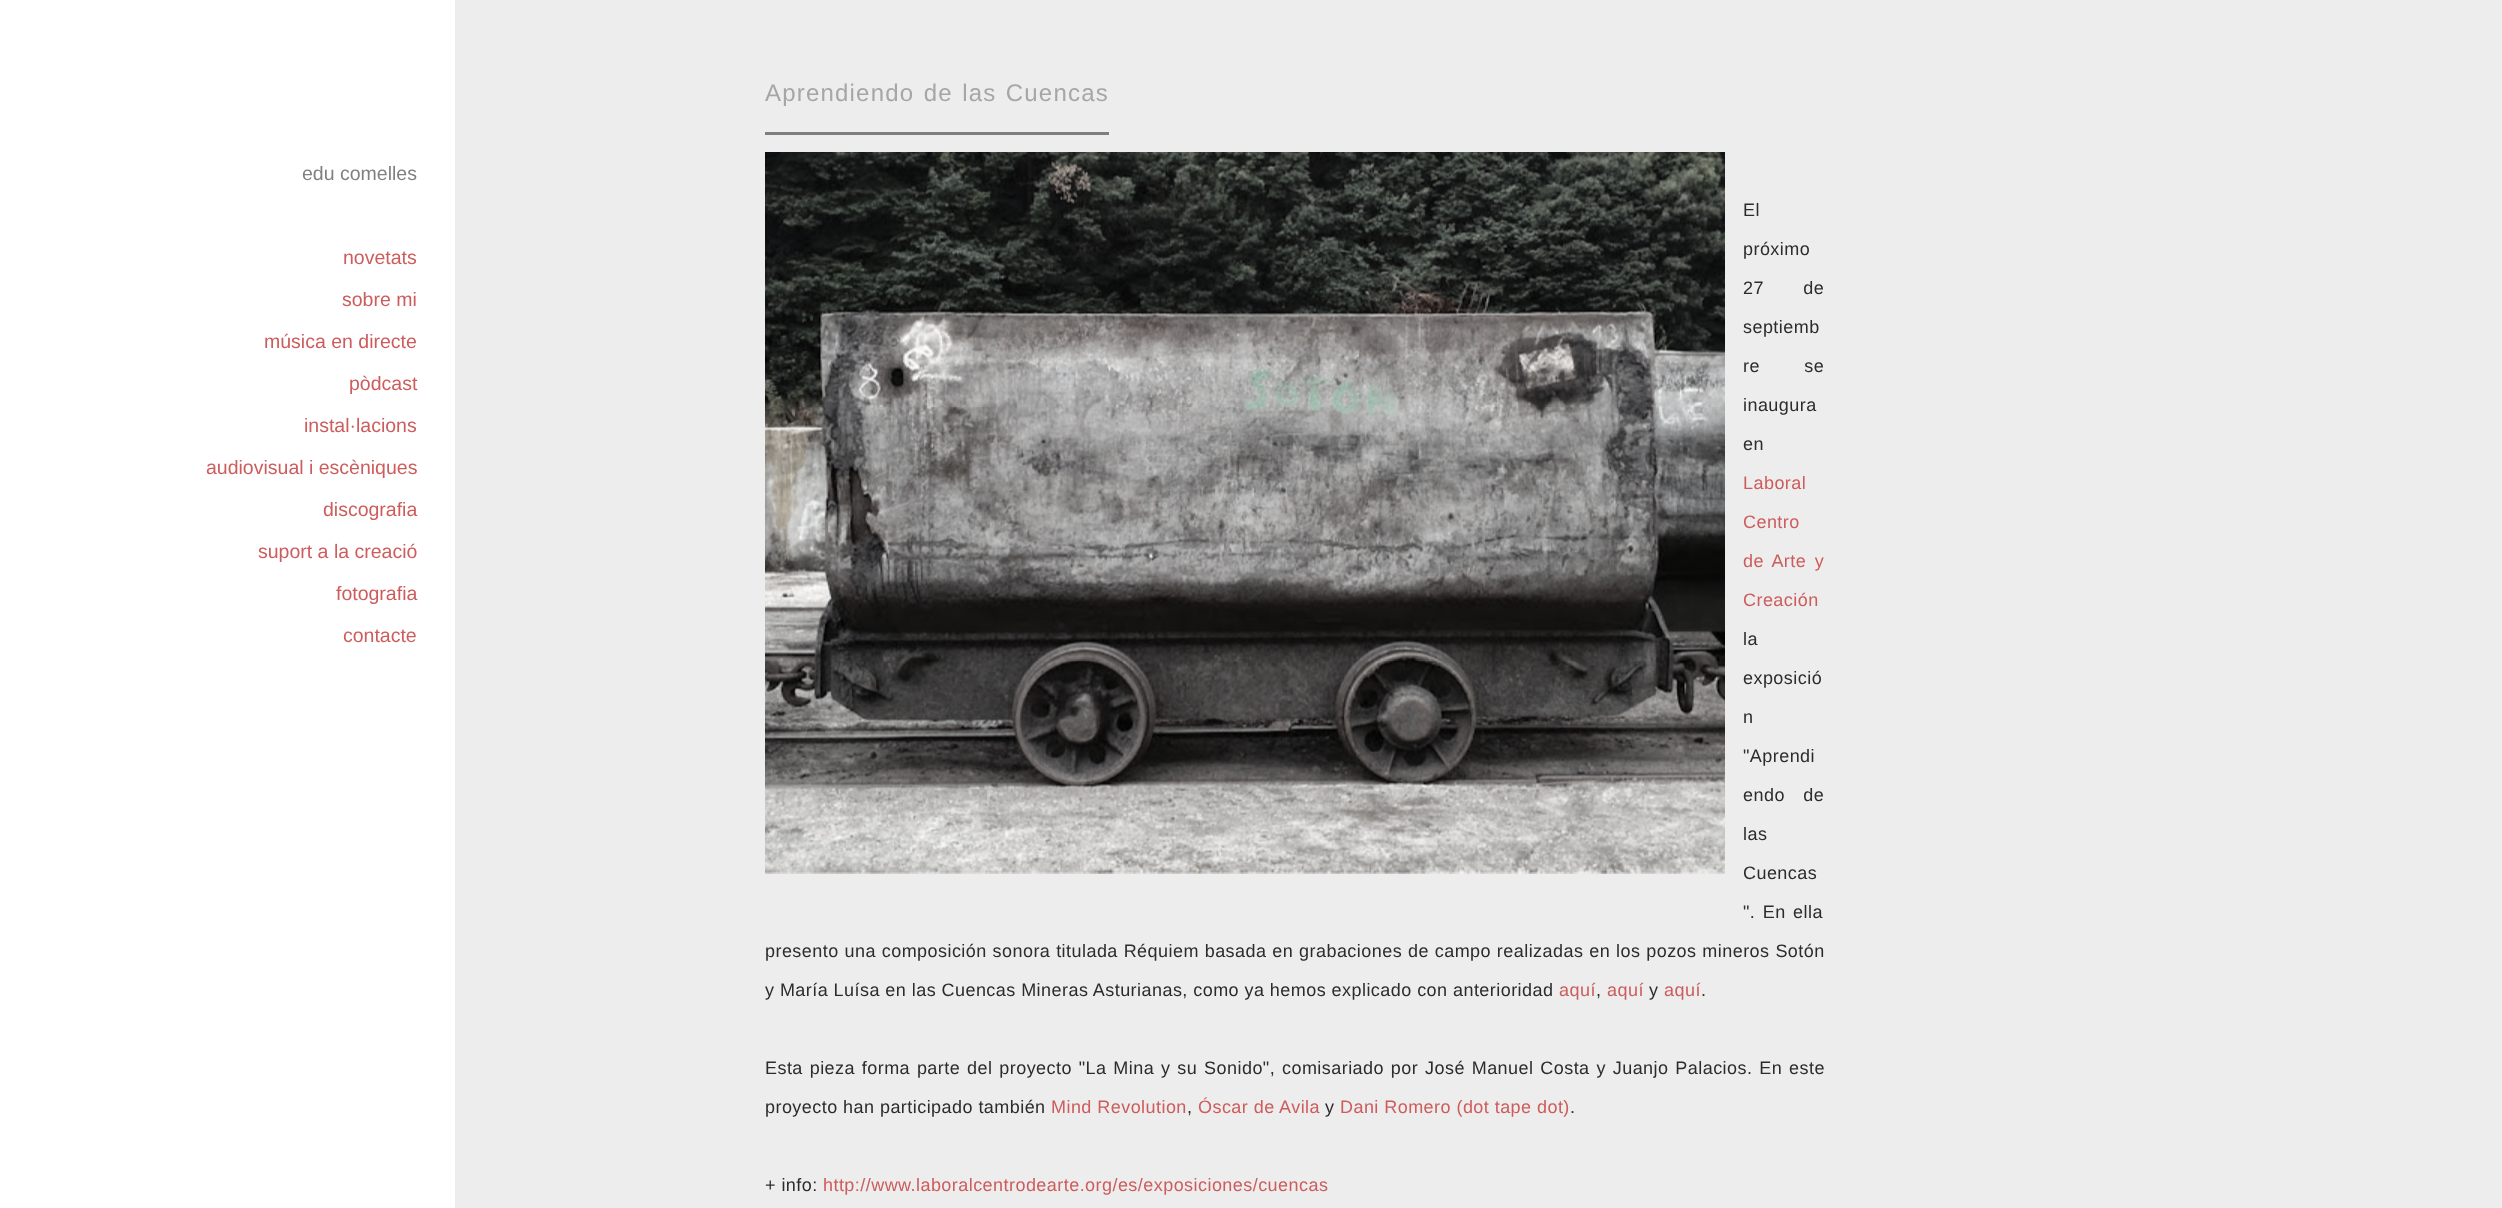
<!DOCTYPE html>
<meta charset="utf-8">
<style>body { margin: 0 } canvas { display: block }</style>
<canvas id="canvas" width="2502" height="1208"></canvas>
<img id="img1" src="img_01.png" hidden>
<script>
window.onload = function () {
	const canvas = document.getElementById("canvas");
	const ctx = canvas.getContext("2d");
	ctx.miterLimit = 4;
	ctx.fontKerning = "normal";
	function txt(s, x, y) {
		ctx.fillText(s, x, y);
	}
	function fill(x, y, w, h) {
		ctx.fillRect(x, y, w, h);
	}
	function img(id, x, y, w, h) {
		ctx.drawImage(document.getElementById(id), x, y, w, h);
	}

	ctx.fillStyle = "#EDEDED";
	fill(0, 0, 2502, 1208);
	ctx.fillStyle = "#FFFFFF";
	fill(0, 0, 455, 1208);
	ctx.fillStyle = "#7E7E7E";
	fill(765, 132, 344, 3);
	img("img1", 765, 152, 960, 722);
	ctx.font = "19.5px Liberation Sans";
	ctx.fillStyle = "#808080";
	txt("edu comelles", 302, 180);
	ctx.fillStyle = "#CD5C5C";
	txt("novetats", 343, 264);
	txt("sobre mi", 342, 306);
	txt("música en directe", 264, 348);
	txt("pòdcast", 349, 390);
	txt("instal·lacions", 304, 432);
	txt("audiovisual i escèniques", 206, 474);
	txt("discografia", 323, 516);
	txt("suport a la creació", 258, 558);
	txt("fotografia", 336, 600);
	txt("contacte", 343, 642);
	ctx.letterSpacing = "1.2px";
	ctx.wordSpacing = "1.5px";
	ctx.font = "24px Liberation Sans";
	ctx.fillStyle = "#A6A6A6";
	txt("Aprendiendo de las Cuencas", 765, 101);
	ctx.letterSpacing = "0.45px";
	ctx.wordSpacing = "0px";
	ctx.font = "18px Liberation Sans";
	ctx.fillStyle = "#2C2C2C";
	txt("El", 1743, 216);
	txt("próximo", 1743, 255);
	ctx.wordSpacing = "34px";
	txt("27 de", 1743, 294);
	ctx.wordSpacing = "0px";
	txt("septiemb", 1743, 333);
	ctx.wordSpacing = "39px";
	txt("re se", 1743, 372);
	ctx.wordSpacing = "0px";
	txt("inaugura", 1743, 411);
	txt("en", 1743, 450);
	ctx.fillStyle = "#CD5C5C";
	txt("Laboral", 1743, 489);
	txt("Centro", 1743, 528);
	ctx.wordSpacing = "3px";
	txt("de Arte y", 1743, 567);
	ctx.wordSpacing = "0px";
	txt("Creación", 1743, 606);
	ctx.fillStyle = "#2C2C2C";
	txt("la", 1743, 645);
	txt("exposició", 1743, 684);
	txt("n", 1743, 723);
	txt("\"Aprendi", 1743, 762);
	ctx.wordSpacing = "13px";
	txt("endo de", 1743, 801);
	ctx.wordSpacing = "0px";
	txt("las", 1743, 840);
	txt("Cuencas", 1743, 879);
	ctx.wordSpacing = "2px";
	txt("\". En ella", 1743, 918);
	ctx.wordSpacing = "0.4px";
	txt("presento una composición sonora titulada Réquiem basada en grabaciones de campo realizadas en los pozos mineros Sotón", 765, 957);
	ctx.wordSpacing = "0px";
	txt("y María Luísa en las Cuencas Mineras Asturianas, como ya hemos explicado con anterioridad", 765, 996);
	ctx.fillStyle = "#CD5C5C";
	txt("aquí", 1559, 996);
	ctx.fillStyle = "#2C2C2C";
	txt(",", 1596, 996);
	ctx.fillStyle = "#CD5C5C";
	txt("aquí", 1607, 996);
	ctx.fillStyle = "#2C2C2C";
	txt("y", 1649, 996);
	ctx.fillStyle = "#CD5C5C";
	txt("aquí", 1664, 996);
	ctx.fillStyle = "#2C2C2C";
	txt(".", 1701, 996);
	ctx.wordSpacing = "1.4px";
	txt("Esta pieza forma parte del proyecto \"La Mina y su Sonido\", comisariado por José Manuel Costa y Juanjo Palacios. En este", 765, 1074);
	ctx.wordSpacing = "0px";
	txt("proyecto han participado también", 765, 1113);
	ctx.fillStyle = "#CD5C5C";
	txt("Mind Revolution", 1051, 1113);
	ctx.fillStyle = "#2C2C2C";
	txt(",", 1187, 1113);
	ctx.fillStyle = "#CD5C5C";
	txt("Óscar de Avila", 1198, 1113);
	ctx.fillStyle = "#2C2C2C";
	txt("y", 1325, 1113);
	ctx.fillStyle = "#CD5C5C";
	txt("Dani Romero (dot tape dot)", 1340, 1113);
	ctx.fillStyle = "#2C2C2C";
	txt(".", 1570, 1113);
	txt("+ info:", 765, 1191);
	ctx.fillStyle = "#CD5C5C";
	txt("http://www.laboralcentrodearte.org/es/exposiciones/cuencas", 823, 1191);
};
</script>
